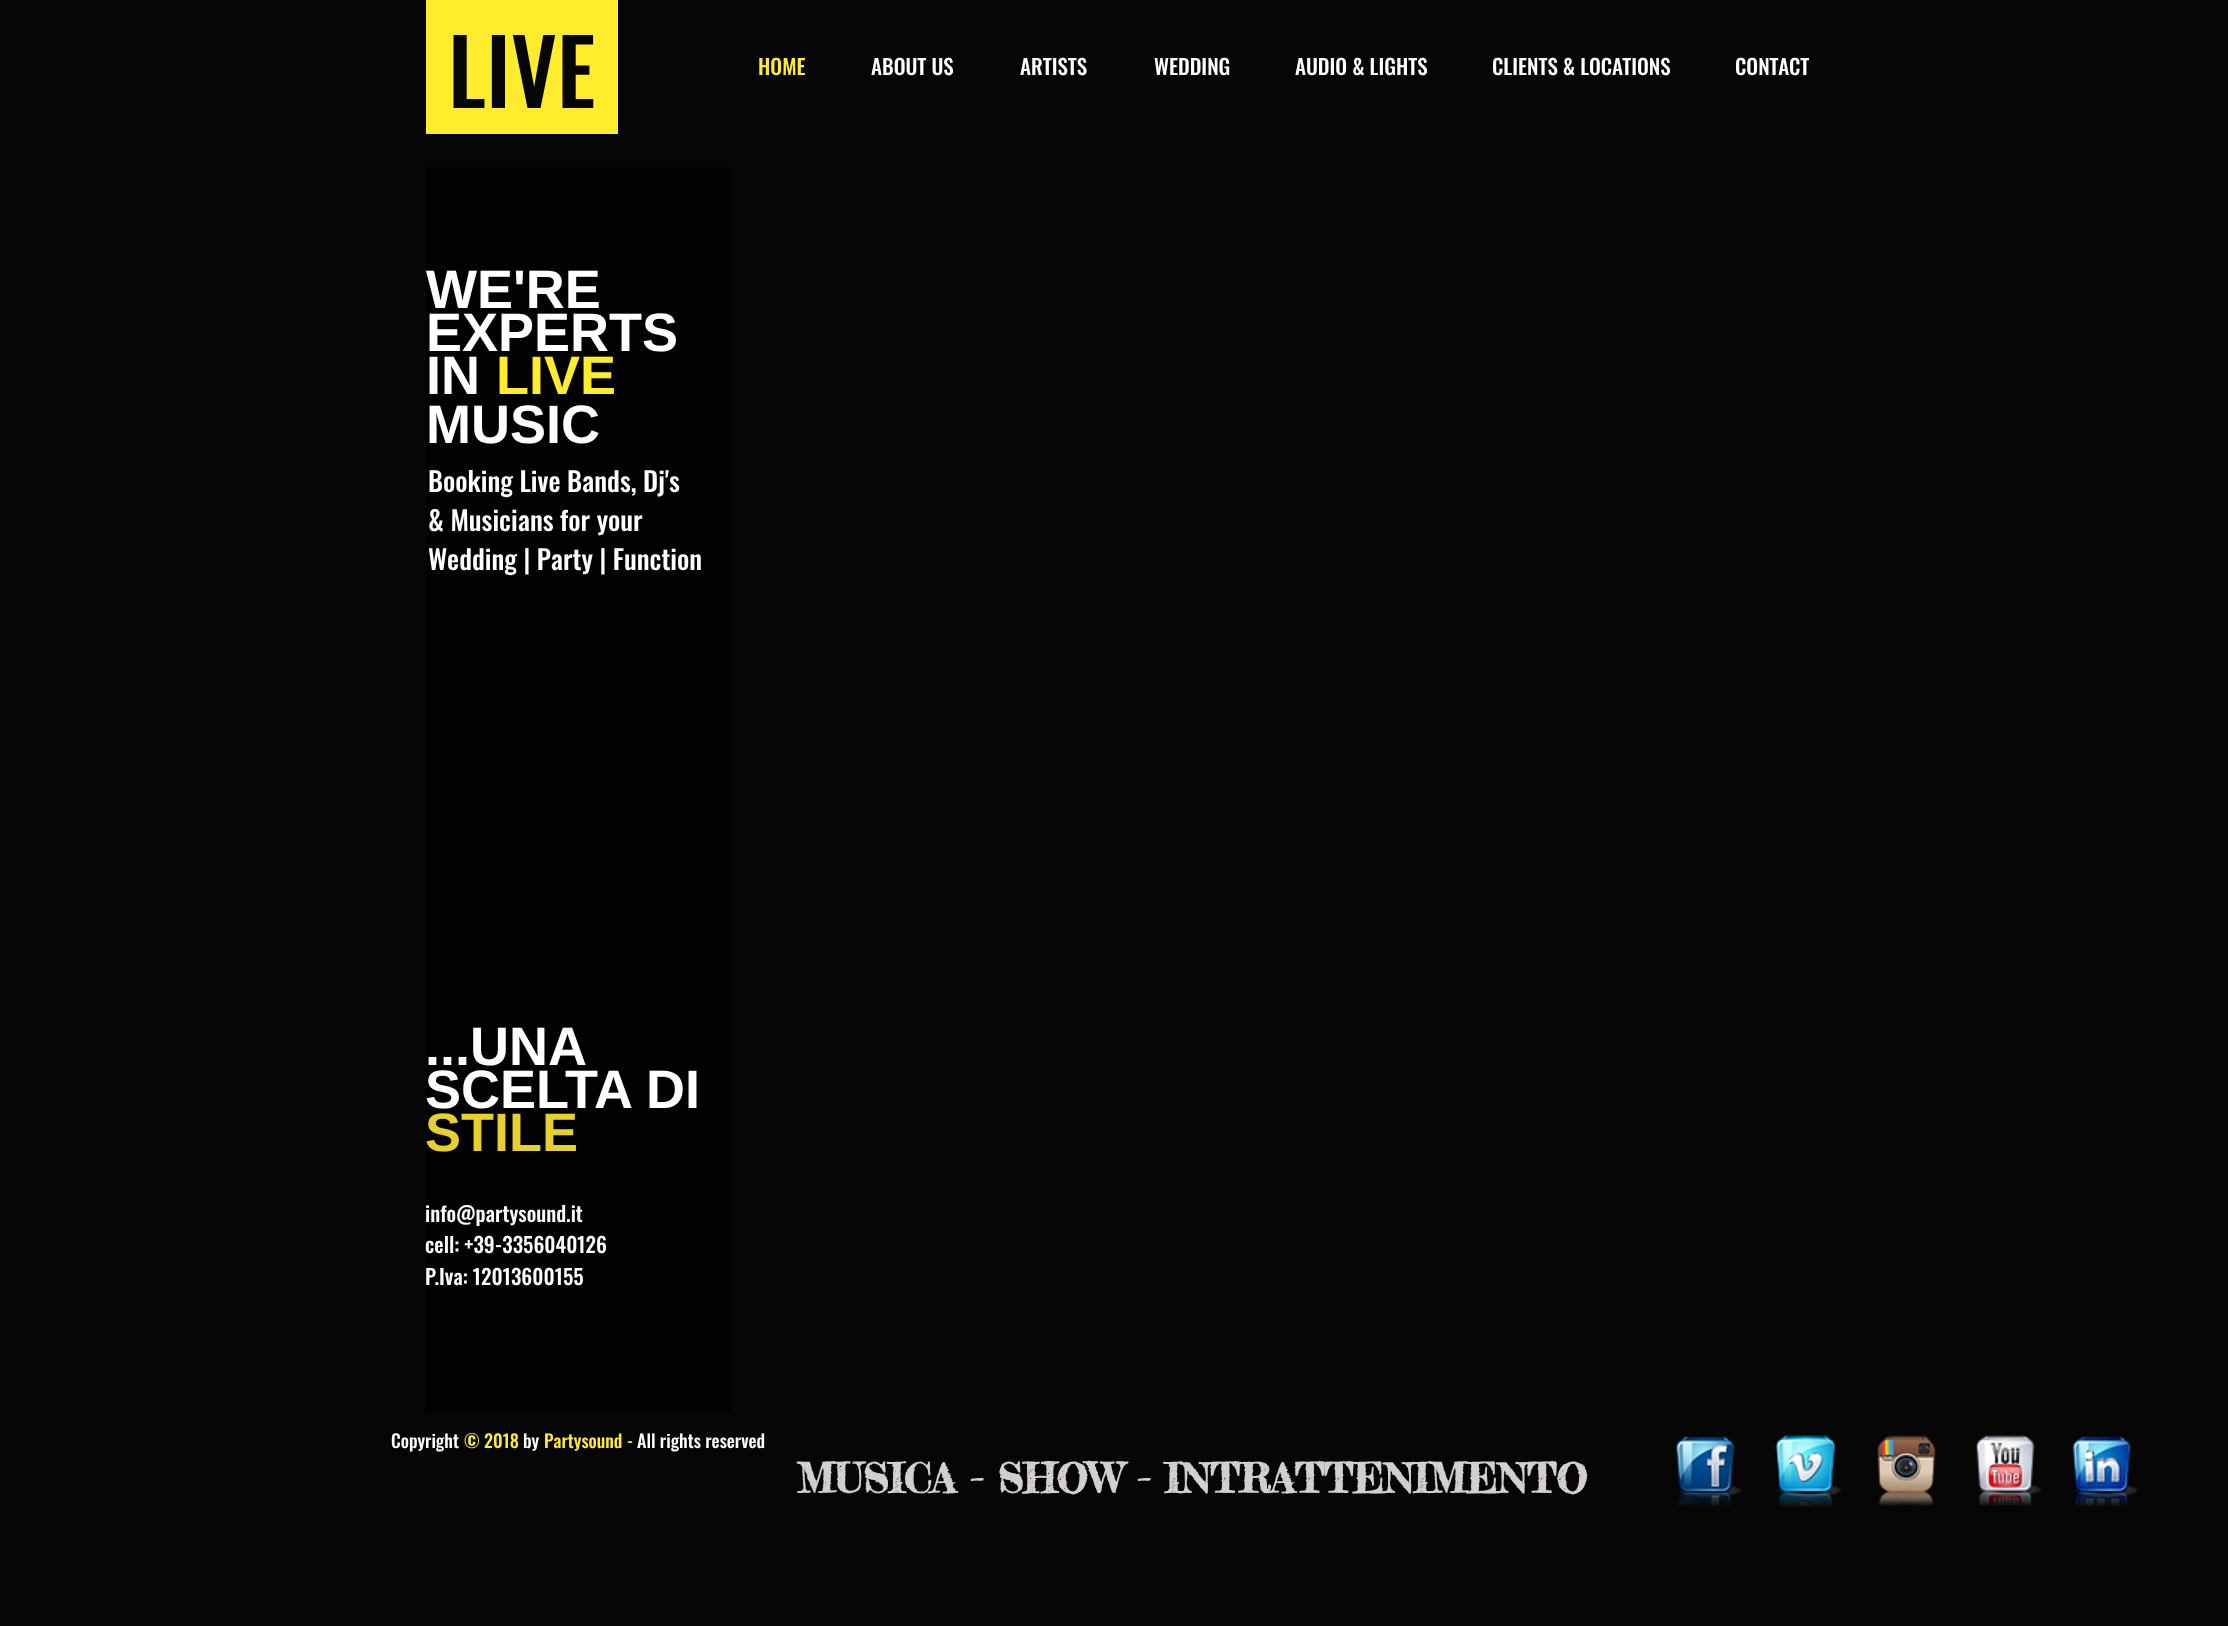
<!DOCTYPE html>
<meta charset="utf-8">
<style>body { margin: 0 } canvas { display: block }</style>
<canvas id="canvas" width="2228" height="1626"></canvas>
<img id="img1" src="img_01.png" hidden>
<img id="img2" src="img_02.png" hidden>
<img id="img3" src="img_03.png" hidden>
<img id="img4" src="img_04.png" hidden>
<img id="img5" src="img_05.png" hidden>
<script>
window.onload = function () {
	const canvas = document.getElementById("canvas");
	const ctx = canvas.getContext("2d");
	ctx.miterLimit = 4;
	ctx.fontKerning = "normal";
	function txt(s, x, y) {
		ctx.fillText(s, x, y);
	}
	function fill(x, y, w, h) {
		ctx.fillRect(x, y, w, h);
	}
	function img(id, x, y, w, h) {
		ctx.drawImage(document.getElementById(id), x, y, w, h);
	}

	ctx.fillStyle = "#060606";
	fill(0, 0, 2228, 1626);
	ctx.fillStyle = "#FFED2D";
	fill(426, 0, 192, 134);
	ctx.fillStyle = "#020202";
	fill(426, 167, 305, 1246);
	img("img1", 1675, 1436, 67, 71);
	img("img2", 1775, 1435, 67, 72);
	img("img3", 1877, 1435, 59, 71);
	img("img4", 1976, 1435, 66, 71);
	img("img5", 2072, 1436, 66, 71);
	ctx.font = "500 90px Oswald";
	ctx.fillStyle = "#060606";
	txt("LIVE", 448, 108);
	ctx.font = "500 21px Oswald";
	ctx.fillStyle = "#FFED2D";
	txt("HOME", 758, 75);
	ctx.fillStyle = "#FFFFFF";
	txt("ABOUT US", 871, 75);
	txt("ARTISTS", 1020, 75);
	txt("WEDDING", 1154, 75);
	txt("AUDIO & LIGHTS", 1295, 75);
	txt("CLIENTS & LOCATIONS", 1492, 75);
	txt("CONTACT", 1735, 75);
	ctx.font = "bold 54px Liberation Sans";
	txt("WE'RE", 426, 308);
	txt("EXPERTS", 426, 351);
	txt("I", 426, 394);
	ctx.letterSpacing = "-5px";
	txt("N", 441, 394);
	ctx.letterSpacing = "0px";
	ctx.fillStyle = "#FFED2D";
	txt("LIVE", 496, 394);
	ctx.fillStyle = "#FFFFFF";
	txt("MUSIC", 426, 443);
	ctx.font = "500 27px Oswald";
	txt("Booking Live Bands, Dj's", 428, 492);
	txt("& Musicians for your", 428, 531);
	txt("Wedding | Party | Function", 428, 570);
	ctx.font = "bold 54px Liberation Sans";
	txt("...UNA", 425, 1065);
	txt("SCELTA DI", 425, 1108);
	ctx.fillStyle = "#E5D02F";
	txt("STILE", 425, 1151);
	ctx.font = "500 21px Oswald";
	ctx.fillStyle = "#FFFFFF";
	txt("info@partysound.it", 425, 1222);
	txt("cell: +39-3356040126", 425, 1253);
	txt("P.Iva: 12013600155", 425, 1285);
	ctx.font = "500 18px Oswald";
	txt("Copyright", 391, 1448);
	ctx.fillStyle = "#FFED2D";
	txt("© 2018", 464, 1448);
	ctx.fillStyle = "#FFFFFF";
	txt("by", 523, 1448);
	ctx.fillStyle = "#FFED2D";
	txt("Partysound -", 544, 1448);
	ctx.fillStyle = "#FFFFFF";
	txt("All rights reserved", 637, 1448);
	ctx.font = "bold 40.5px Fredericka the Great";
	ctx.fillStyle = "#D2CFCD";
	txt("MUSICA - SHOW - INTRATTENIMENTO", 797, 1493);
};
</script>
